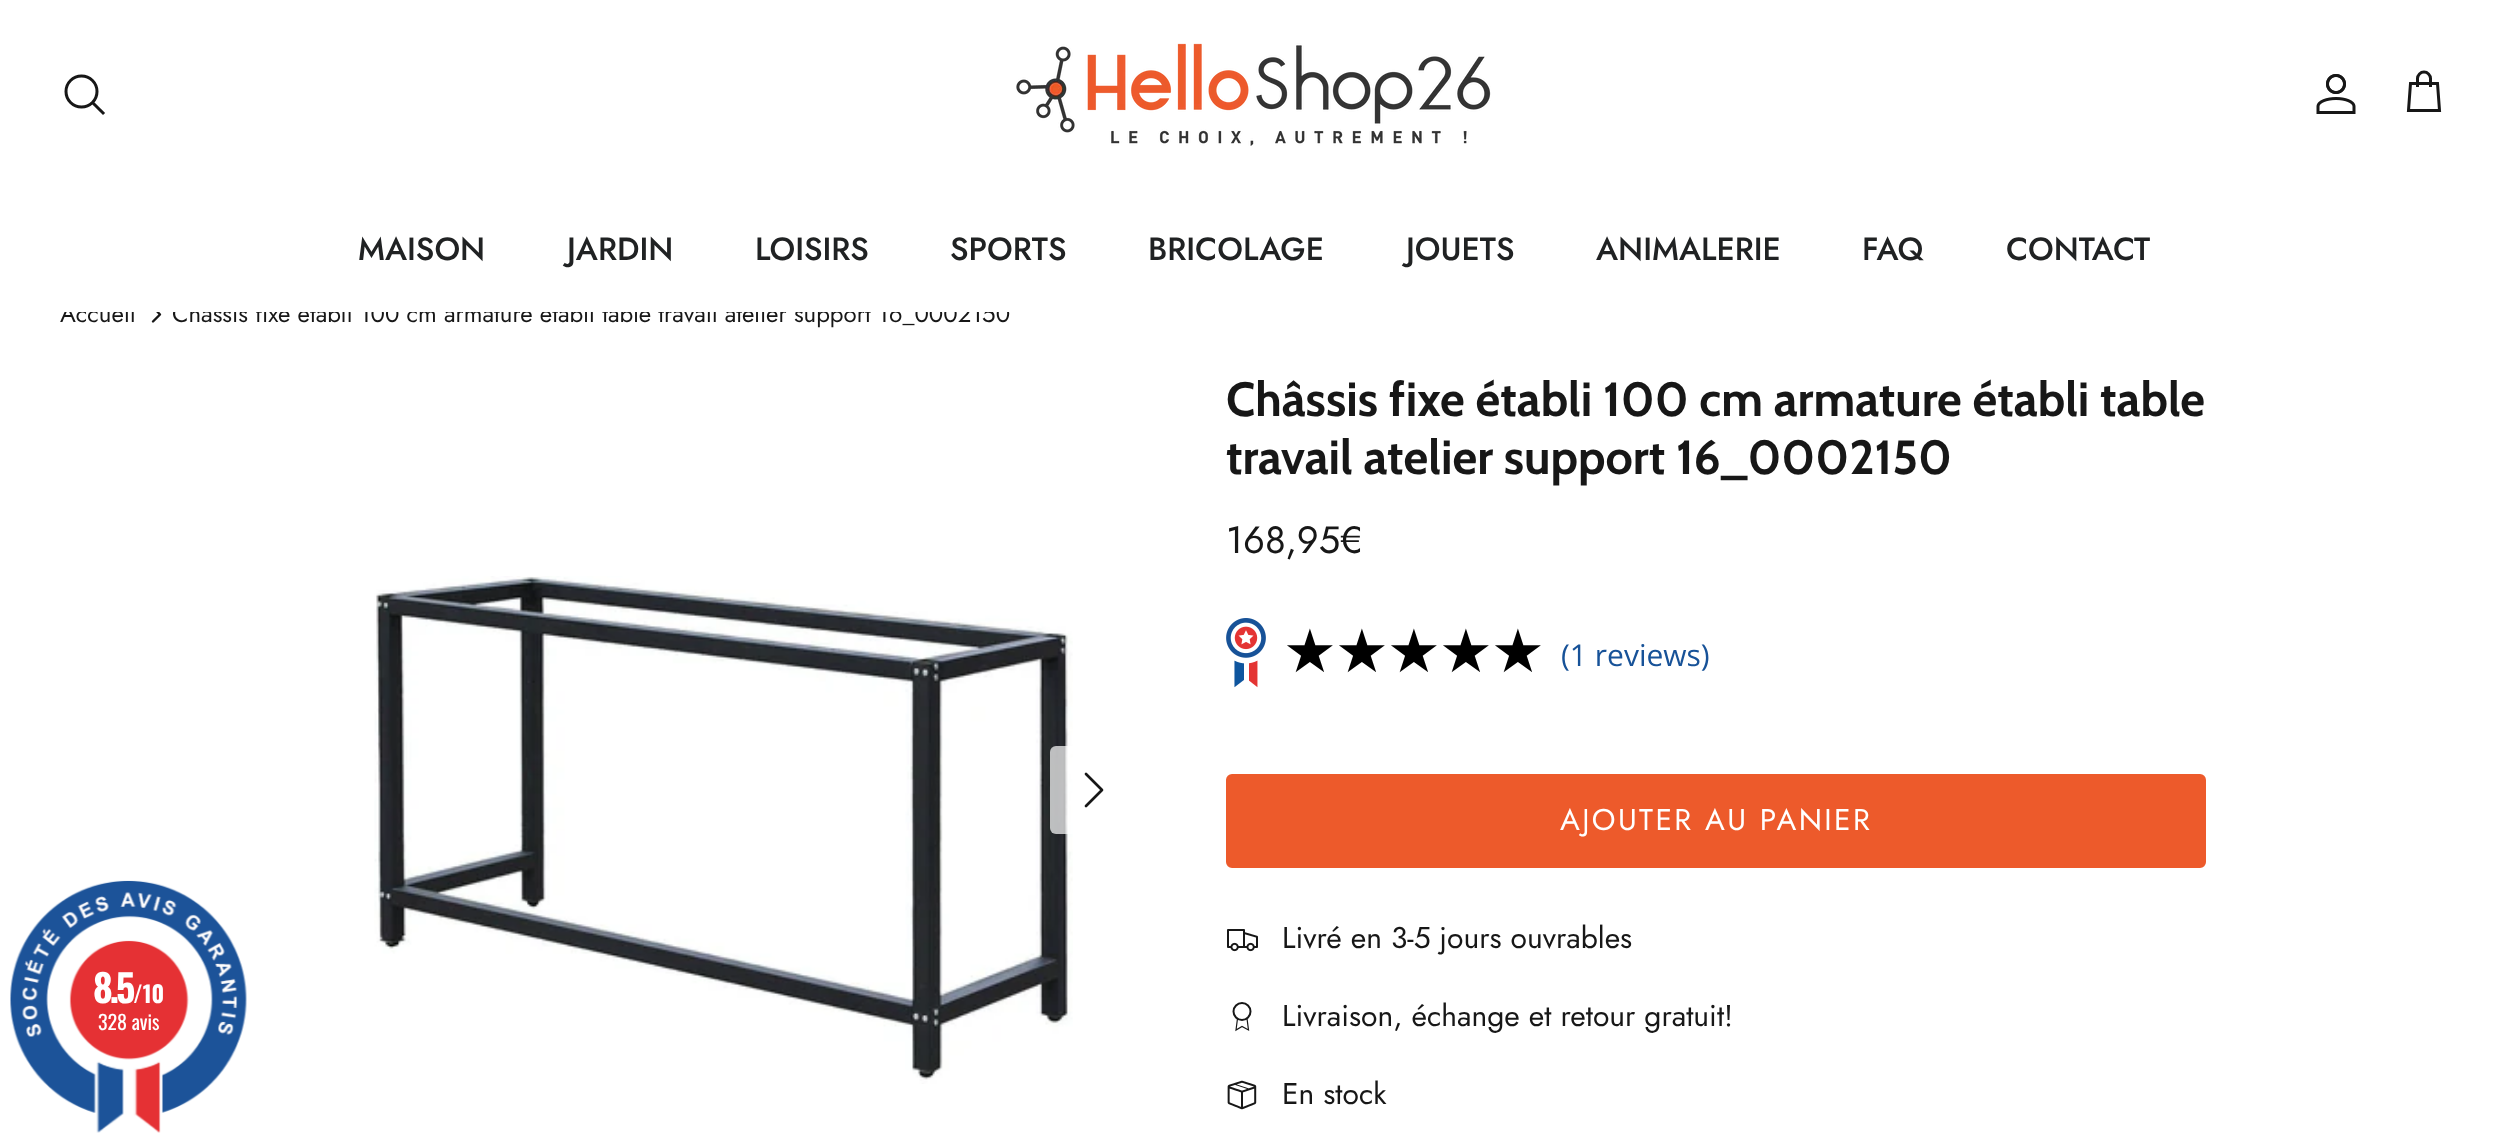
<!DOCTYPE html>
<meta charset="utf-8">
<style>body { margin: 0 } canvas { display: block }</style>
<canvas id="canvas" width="2508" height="1143"></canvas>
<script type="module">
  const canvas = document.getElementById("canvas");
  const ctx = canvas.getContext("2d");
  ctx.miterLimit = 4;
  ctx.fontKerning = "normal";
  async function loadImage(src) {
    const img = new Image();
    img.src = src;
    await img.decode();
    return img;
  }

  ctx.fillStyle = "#ffffff";
  ctx.fillRect(0, 0, 2508, 1143);
  ctx.beginPath();
  ctx.arc(81.5, 91.5, 15.5, 0, Math.PI * 2);
  ctx.strokeStyle = "#171717";
  ctx.lineWidth = 3;
  ctx.stroke();
  ctx.beginPath();
  ctx.moveTo(94, 104);
  ctx.lineTo(103, 113);
  ctx.lineCap = "square";
  ctx.stroke();
  ctx.drawImage(await loadImage("img1.png"), 1016, 43, 475, 103);
  ctx.drawImage(await loadImage("img2.png"), 2316, 74, 40, 40);
  ctx.beginPath();
  ctx.moveTo(2430.5, 87);
  ctx.lineTo(2430.5, 78.5);
  ctx.bezierCurveTo(2430.5, 75, 2427.5, 72, 2424, 72);
  ctx.bezierCurveTo(2420.5, 72, 2417.5, 75, 2417.5, 78.5);
  ctx.lineTo(2417.5, 87);
  ctx.moveTo(2410.5, 83.5);
  ctx.lineTo(2437.5, 83.5);
  ctx.lineTo(2439.5, 110.5);
  ctx.lineTo(2408.5, 110.5);
  ctx.closePath();
  ctx.lineCap = "butt";
  ctx.stroke();
  ctx.font = "24px Jost";
  ctx.fillStyle = "#171717";
  ctx.fillText("Accueil", 60, 322);
  ctx.beginPath();
  ctx.moveTo(153, 321.5);
  ctx.lineTo(160, 314.5);
  ctx.lineTo(153, 307);
  ctx.lineWidth = 2.4;
  ctx.lineCap = "round";
  ctx.lineJoin = "round";
  ctx.stroke();
  ctx.fillText("Châssis fixe établi 100 cm armature établi table travail atelier support 16_0002150", 172, 322);
  ctx.fillStyle = "#ffffff";
  ctx.fillRect(64, 310, 945, 2);
  ctx.fillRect(65, 303, 944, 7);
  ctx.font = "500 32px Jost";
  ctx.fillStyle = "#202223";
  ctx.fillText("MAISON", 358, 260);
  ctx.fillText("JARDIN", 567, 260);
  ctx.fillText("LOISIRS", 755, 260);
  ctx.fillText("SPORTS", 950, 260);
  ctx.fillText("BRICOLAGE", 1148, 260);
  ctx.fillText("JOUETS", 1406, 260);
  ctx.fillText("ANIMALERIE", 1596, 260);
  ctx.fillText("FAQ", 1862, 260);
  ctx.fillText("CONTACT", 2006, 260);
  ctx.drawImage(await loadImage("img3.png"), 374, 576, 699, 508);
  ctx.fillStyle = "rgba(255, 255, 255, 0.7)";
  ctx.beginPath();
  ctx.roundRect(1050, 746, 88, 88, [6, 0, 0, 6]);
  ctx.fill();
  ctx.beginPath();
  ctx.moveTo(1086, 806);
  ctx.lineTo(1102, 790);
  ctx.lineTo(1086, 774);
  ctx.lineWidth = 2.7;
  ctx.stroke();
  ctx.font = "bold 48px Cabin";
  ctx.fillStyle = "#171717";
  ctx.fillText("Châssis fixe établi 100 cm armature établi table", 1226, 416);
  ctx.fillText("travail atelier support 16_0002150", 1226, 474);
  ctx.font = "38px Jost";
  ctx.fillText("168,95€", 1226, 553);
  ctx.drawImage(await loadImage("img4.png"), 1226, 618, 40, 70);
  ctx.font = "60px DejaVu Sans";
  ctx.fillStyle = "#000000";
  ctx.fillText("★", 1283, 672);
  ctx.fillText("★", 1335, 672);
  ctx.fillText("★", 1387, 672);
  ctx.fillText("★", 1439, 672);
  ctx.fillText("★", 1491, 672);
  ctx.font = "30px Open Sans";
  ctx.fillStyle = "#175298";
  ctx.fillText("(1 reviews)", 1561, 666);
  ctx.fillStyle = "#ed5a2b";
  ctx.beginPath();
  ctx.roundRect(1227, 775, 978, 92, 5);
  ctx.fill();
  ctx.strokeStyle = "#ed5a2b";
  ctx.lineWidth = 2;
  ctx.lineJoin = "miter";
  ctx.stroke();
  ctx.letterSpacing = "2.4px";
  ctx.font = "30px Jost";
  ctx.fillStyle = "#ffffff";
  ctx.fillText("AJOUTER AU PANIER", 1560, 830);
  ctx.drawImage(await loadImage("img5.png"), 1227, 929, 31, 23);
  ctx.letterSpacing = "0px";
  ctx.fillStyle = "#171717";
  ctx.fillText("Livré en 3-5 jours ouvrables", 1282, 948);
  ctx.beginPath();
  ctx.arc(1242, 1011.5, 8.5, 0, Math.PI * 2);
  ctx.strokeStyle = "#171717";
  ctx.stroke();
  ctx.beginPath();
  ctx.moveTo(1237.5, 1018.5);
  ctx.lineTo(1236, 1030);
  ctx.lineTo(1242, 1026.5);
  ctx.lineTo(1248.5, 1030);
  ctx.lineTo(1247, 1018.5);
  ctx.lineWidth = 1.2;
  ctx.lineCap = "butt";
  ctx.stroke();
  ctx.fillText("Livraison, échange et retour gratuit!", 1282, 1026);
  ctx.drawImage(await loadImage("img6.png"), 1227, 1080, 30, 30);
  ctx.fillText("En stock", 1282, 1104);
  ctx.drawImage(await loadImage("img7.png"), 10, 880, 237, 253);
  ctx.letterSpacing = "-3px";
  ctx.font = "bold 38px Oswald";
  ctx.fillStyle = "#ffffff";
  ctx.fillText("8.5", 93, 1003);
  ctx.letterSpacing = "0px";
  ctx.font = "bold 23px Oswald";
  ctx.fillText("/10", 133, 1003);
  ctx.font = "20px Oswald";
  ctx.fillText("328 avis", 98, 1030);
</script>
